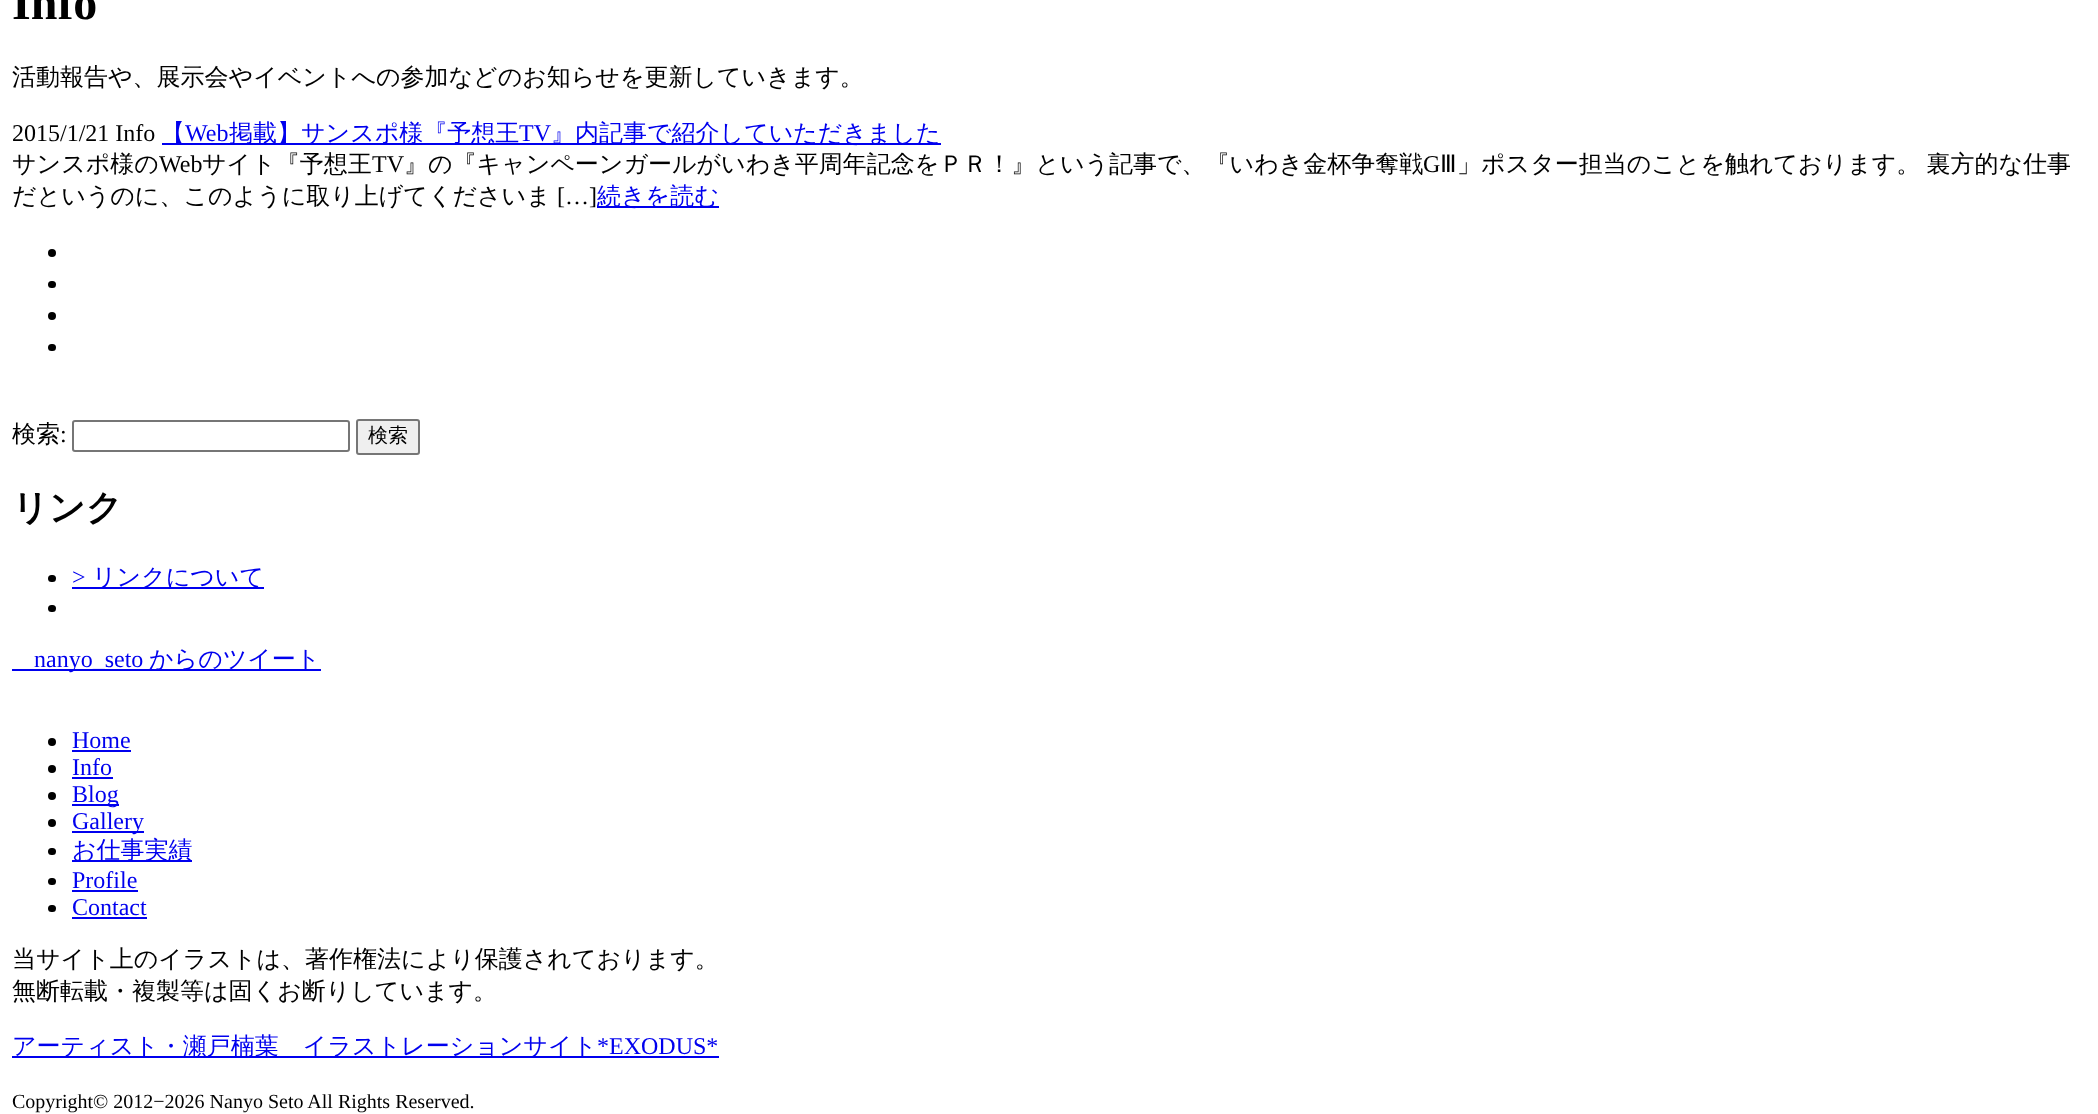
<!DOCTYPE html>
<meta charset="utf-8">
<style>body { margin: 0 } canvas { display: block }</style>
<canvas id="canvas" width="2098" height="1114"></canvas>
<script type="module">
  const canvas = document.getElementById("canvas");
  const ctx = canvas.getContext("2d");
  ctx.miterLimit = 4;
  ctx.fontKerning = "normal";

  ctx.fillStyle = "#ffffff";
  ctx.fillRect(0, 0, 2098, 1114);
  ctx.font = "bold 48px Liberation Serif";
  ctx.fillStyle = "#000000";
  ctx.fillText("Info", 12, 19);
  ctx.font = "500 24px WenQuanYi Zen Hei";
  ctx.fillText("活動報告や、展示会やイベントへの参加などのお知らせを更新していきます。", 12, 85);
  ctx.font = "24px Liberation Serif";
  ctx.fillText("2015/1/21 Info", 12, 141);
  ctx.fillStyle = "#0000ee";
  ctx.fillRect(162, 143, 779, 2);
  ctx.font = "500 24px WenQuanYi Zen Hei";
  ctx.fillText("【", 161, 141);
  ctx.font = "24px Liberation Serif";
  ctx.fillText("Web", 185, 141);
  ctx.font = "500 24px WenQuanYi Zen Hei";
  ctx.fillText("掲載】サンスポ様『予想王", 229, 141);
  ctx.font = "24px Liberation Serif";
  ctx.fillText("TV", 519, 141);
  ctx.font = "500 24px WenQuanYi Zen Hei";
  ctx.fillText("』内記事で紹介していただきました", 551, 141);
  ctx.fillStyle = "#000000";
  ctx.fillText("サンスポ様の", 12, 172);
  ctx.font = "24px Liberation Serif";
  ctx.fillText("Web", 159, 172);
  ctx.font = "500 24px WenQuanYi Zen Hei";
  ctx.fillText("サイト『予想王", 202, 172);
  ctx.font = "24px Liberation Serif";
  ctx.fillText("TV", 372, 172);
  ctx.font = "500 24px WenQuanYi Zen Hei";
  ctx.fillText("』の『キャンペーンガールがいわき平周年記念をＰＲ！』という記事で、『いわき金杯争奪戦", 404, 172);
  ctx.font = "24px Liberation Serif";
  ctx.fillText("G", 1423, 172);
  ctx.font = "24px DejaVu Sans";
  ctx.fillText("Ⅲ", 1440, 172);
  ctx.wordSpacing = "-1px";
  ctx.font = "500 24px WenQuanYi Zen Hei";
  ctx.fillText("」ポスター担当のことを触れております。 裏方的な仕事", 1457, 172);
  ctx.wordSpacing = "0px";
  ctx.fillText("だというのに、このように取り上げてくださいま", 12, 204);
  ctx.font = "24px Liberation Serif";
  ctx.fillText("[…]", 557, 204);
  ctx.fillStyle = "#0000ee";
  ctx.fillRect(597, 206, 122, 2);
  ctx.font = "500 24px WenQuanYi Zen Hei";
  ctx.fillText("続きを読む", 597, 204);
  ctx.fillStyle = "#000000";
  ctx.beginPath();
  ctx.arc(52, 253, 4, 0, Math.PI * 2);
  ctx.fill();
  ctx.beginPath();
  ctx.roundRect(48, 281, 8, 7, 3.5);
  ctx.fill();
  ctx.beginPath();
  ctx.arc(52, 316, 4, 0, Math.PI * 2);
  ctx.fill();
  ctx.beginPath();
  ctx.roundRect(48, 344, 8, 7, 3.5);
  ctx.fill();
  ctx.fillText("検索", 12, 442);
  ctx.font = "24px Liberation Serif";
  ctx.fillText(":", 60, 442);
  ctx.beginPath();
  ctx.roundRect(73, 421, 276, 30, 2);
  ctx.strokeStyle = "#767676";
  ctx.lineWidth = 2;
  ctx.stroke();
  ctx.fillStyle = "#efefef";
  ctx.beginPath();
  ctx.roundRect(357, 420, 62, 34, 2);
  ctx.fill();
  ctx.stroke();
  ctx.font = "500 20px WenQuanYi Zen Hei";
  ctx.fillStyle = "#000000";
  ctx.fillText("検索", 368, 442);
  ctx.font = "bold 36px WenQuanYi Zen Hei";
  ctx.fillText("リンク", 12, 520);
  ctx.beginPath();
  ctx.roundRect(48, 575, 8, 7, 3.5);
  ctx.fill();
  ctx.font = "24px Liberation Serif";
  ctx.fillStyle = "#0000ee";
  ctx.fillText(">", 72, 585);
  ctx.fillRect(72, 587, 192, 2);
  ctx.font = "500 24px WenQuanYi Zen Hei";
  ctx.fillText("リンクについて", 92, 585);
  ctx.fillStyle = "#000000";
  ctx.beginPath();
  ctx.roundRect(48, 605, 8, 7, 3.5);
  ctx.fill();
  ctx.fillStyle = "#0000ee";
  ctx.fillRect(12, 669, 309, 2);
  ctx.font = "24px Liberation Serif";
  ctx.fillText("nanyo_seto", 34, 667);
  ctx.font = "500 24px WenQuanYi Zen Hei";
  ctx.fillText("からのツイート", 149, 667);
  ctx.fillStyle = "#000000";
  ctx.beginPath();
  ctx.arc(52, 742, 4, 0, Math.PI * 2);
  ctx.fill();
  ctx.font = "24px Liberation Serif";
  ctx.fillStyle = "#0000ee";
  ctx.fillText("Home", 72, 748);
  ctx.fillRect(72, 750, 59, 2);
  ctx.fillStyle = "#000000";
  ctx.beginPath();
  ctx.arc(52, 769, 4, 0, Math.PI * 2);
  ctx.fill();
  ctx.fillStyle = "#0000ee";
  ctx.fillText("Info", 72, 775);
  ctx.fillRect(72, 777, 41, 2);
  ctx.fillStyle = "#000000";
  ctx.beginPath();
  ctx.arc(52, 796, 4, 0, Math.PI * 2);
  ctx.fill();
  ctx.fillStyle = "#0000ee";
  ctx.fillRect(72, 804, 47, 2);
  ctx.fillText("Blog", 72, 802);
  ctx.fillStyle = "#000000";
  ctx.beginPath();
  ctx.arc(52, 823, 4, 0, Math.PI * 2);
  ctx.fill();
  ctx.fillStyle = "#0000ee";
  ctx.fillRect(72, 831, 72, 2);
  ctx.fillText("Gallery", 72, 829);
  ctx.fillStyle = "#000000";
  ctx.beginPath();
  ctx.roundRect(48, 848, 8, 7, 3.5);
  ctx.fill();
  ctx.fillStyle = "#0000ee";
  ctx.fillRect(72, 860, 120, 2);
  ctx.font = "500 24px WenQuanYi Zen Hei";
  ctx.fillText("お仕事実績", 72, 858);
  ctx.fillStyle = "#000000";
  ctx.beginPath();
  ctx.roundRect(48, 878, 8, 7, 3.5);
  ctx.fill();
  ctx.font = "24px Liberation Serif";
  ctx.fillStyle = "#0000ee";
  ctx.fillText("Profile", 72, 888);
  ctx.fillRect(72, 890, 66, 2);
  ctx.fillStyle = "#000000";
  ctx.beginPath();
  ctx.roundRect(48, 905, 8, 7, 3.5);
  ctx.fill();
  ctx.fillStyle = "#0000ee";
  ctx.fillText("Contact", 72, 915);
  ctx.fillRect(72, 917, 75, 2);
  ctx.font = "500 24px WenQuanYi Zen Hei";
  ctx.fillStyle = "#000000";
  ctx.fillText("当サイト上のイラストは、著作権法により保護されております。", 12, 967);
  ctx.fillText("無断転載・複製等は固くお断りしています。", 12, 999);
  ctx.fillStyle = "#0000ee";
  ctx.fillRect(12, 1056, 707, 2);
  ctx.fillText("アーティスト・瀬戸楠葉　イラストレーションサイト", 12, 1054);
  ctx.font = "24px Liberation Serif";
  ctx.fillText("*EXODUS*", 597, 1054);
  ctx.font = "20px Liberation Serif";
  ctx.fillStyle = "#000000";
  ctx.fillText("Copyright© 2012−2026 Nanyo Seto All Rights Reserved.", 12, 1108);
</script>
